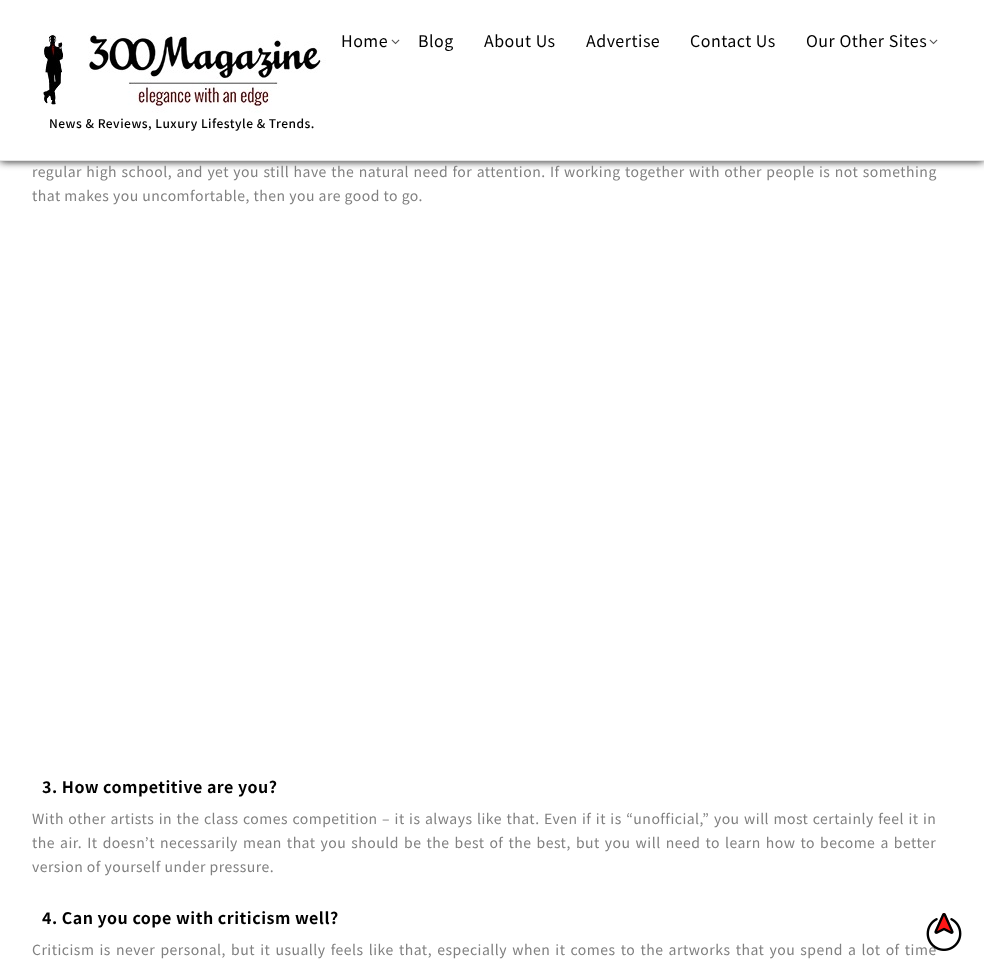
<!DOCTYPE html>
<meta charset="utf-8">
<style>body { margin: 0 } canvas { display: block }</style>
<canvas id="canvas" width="984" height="975"></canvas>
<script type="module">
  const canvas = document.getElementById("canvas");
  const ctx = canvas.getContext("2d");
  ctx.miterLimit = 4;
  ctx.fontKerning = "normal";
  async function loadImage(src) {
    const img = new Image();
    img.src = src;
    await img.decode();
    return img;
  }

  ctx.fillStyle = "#ffffff";
  ctx.fillRect(0, 0, 984, 975);
  ctx.fillStyle = "rgba(0, 0, 0, 0.9)";
  ctx.filter = "blur(4px)";
  ctx.beginPath();
  ctx.rect(0, 0, 984, 161);
  ctx.fill();
  ctx.filter = "none";
  ctx.fillStyle = "#909090";
  ctx.filter = "blur(2.5px)";
  ctx.beginPath();
  ctx.rect(5, 10, 974, 151);
  ctx.fill();
  ctx.filter = "none";
  ctx.fillStyle = "#ffffff";
  ctx.fillRect(0, 0, 984, 160);
  ctx.fillStyle = "#e4e4e4";
  ctx.fillRect(0, 160, 984, 1);
  ctx.letterSpacing = "0.5px";
  ctx.font = "100 16px Noto Sans JP";
  ctx.fillStyle = "#000000";
  ctx.fillText("Home", 341, 47);
  ctx.drawImage(await loadImage("img1.png"), 391, 39, 9, 6);
  ctx.fillText("Blog", 418, 47);
  ctx.fillText("About Us", 484, 47);
  ctx.fillText("Advertise", 586, 47);
  ctx.fillText("Contact Us", 690, 47);
  ctx.fillText("Our Other Sites", 806, 47);
  ctx.drawImage(await loadImage("img1.png"), 929, 39, 9, 6);
  ctx.drawImage(await loadImage("img2.png"), 42, 33, 284, 80);
  ctx.font = "500 12px Noto Sans JP";
  ctx.fillText("News & Reviews, Luxury Lifestyle & Trends.", 49, 128);
  ctx.wordSpacing = "0.75px";
  ctx.font = "100 14px Noto Sans JP";
  ctx.fillStyle = "#808080";
  ctx.fillText("regular high school, and yet you still have the natural need for attention. If working together with other people is not something", 32, 177);
  ctx.wordSpacing = "0px";
  ctx.fillText("that makes you uncomfortable, then you are good to go.", 32, 201);
  ctx.font = "bold 16px Noto Sans JP";
  ctx.fillStyle = "#000000";
  ctx.fillText("3. How competitive are you?", 42, 793);
  ctx.wordSpacing = "0.8px";
  ctx.font = "100 14px Noto Sans JP";
  ctx.fillStyle = "#808080";
  ctx.fillText("With other artists in the class comes competition – it is always like that. Even if it is “unofficial,” you will most certainly feel it in", 32, 824);
  ctx.wordSpacing = "1.4px";
  ctx.fillText("the air. It doesn’t necessarily mean that you should be the best of the best, but you will need to learn how to become a better", 32, 848);
  ctx.wordSpacing = "0px";
  ctx.fillText("version of yourself under pressure.", 32, 872);
  ctx.font = "bold 16px Noto Sans JP";
  ctx.fillStyle = "#000000";
  ctx.fillText("4. Can you cope with criticism well?", 42, 924);
  ctx.wordSpacing = "1.5px";
  ctx.font = "100 14px Noto Sans JP";
  ctx.fillStyle = "#808080";
  ctx.fillText("Criticism is never personal, but it usually feels like that, especially when it comes to the artworks that you spend a lot of time", 32, 955);
  ctx.drawImage(await loadImage("img3.png"), 926, 913, 36, 38);
</script>
